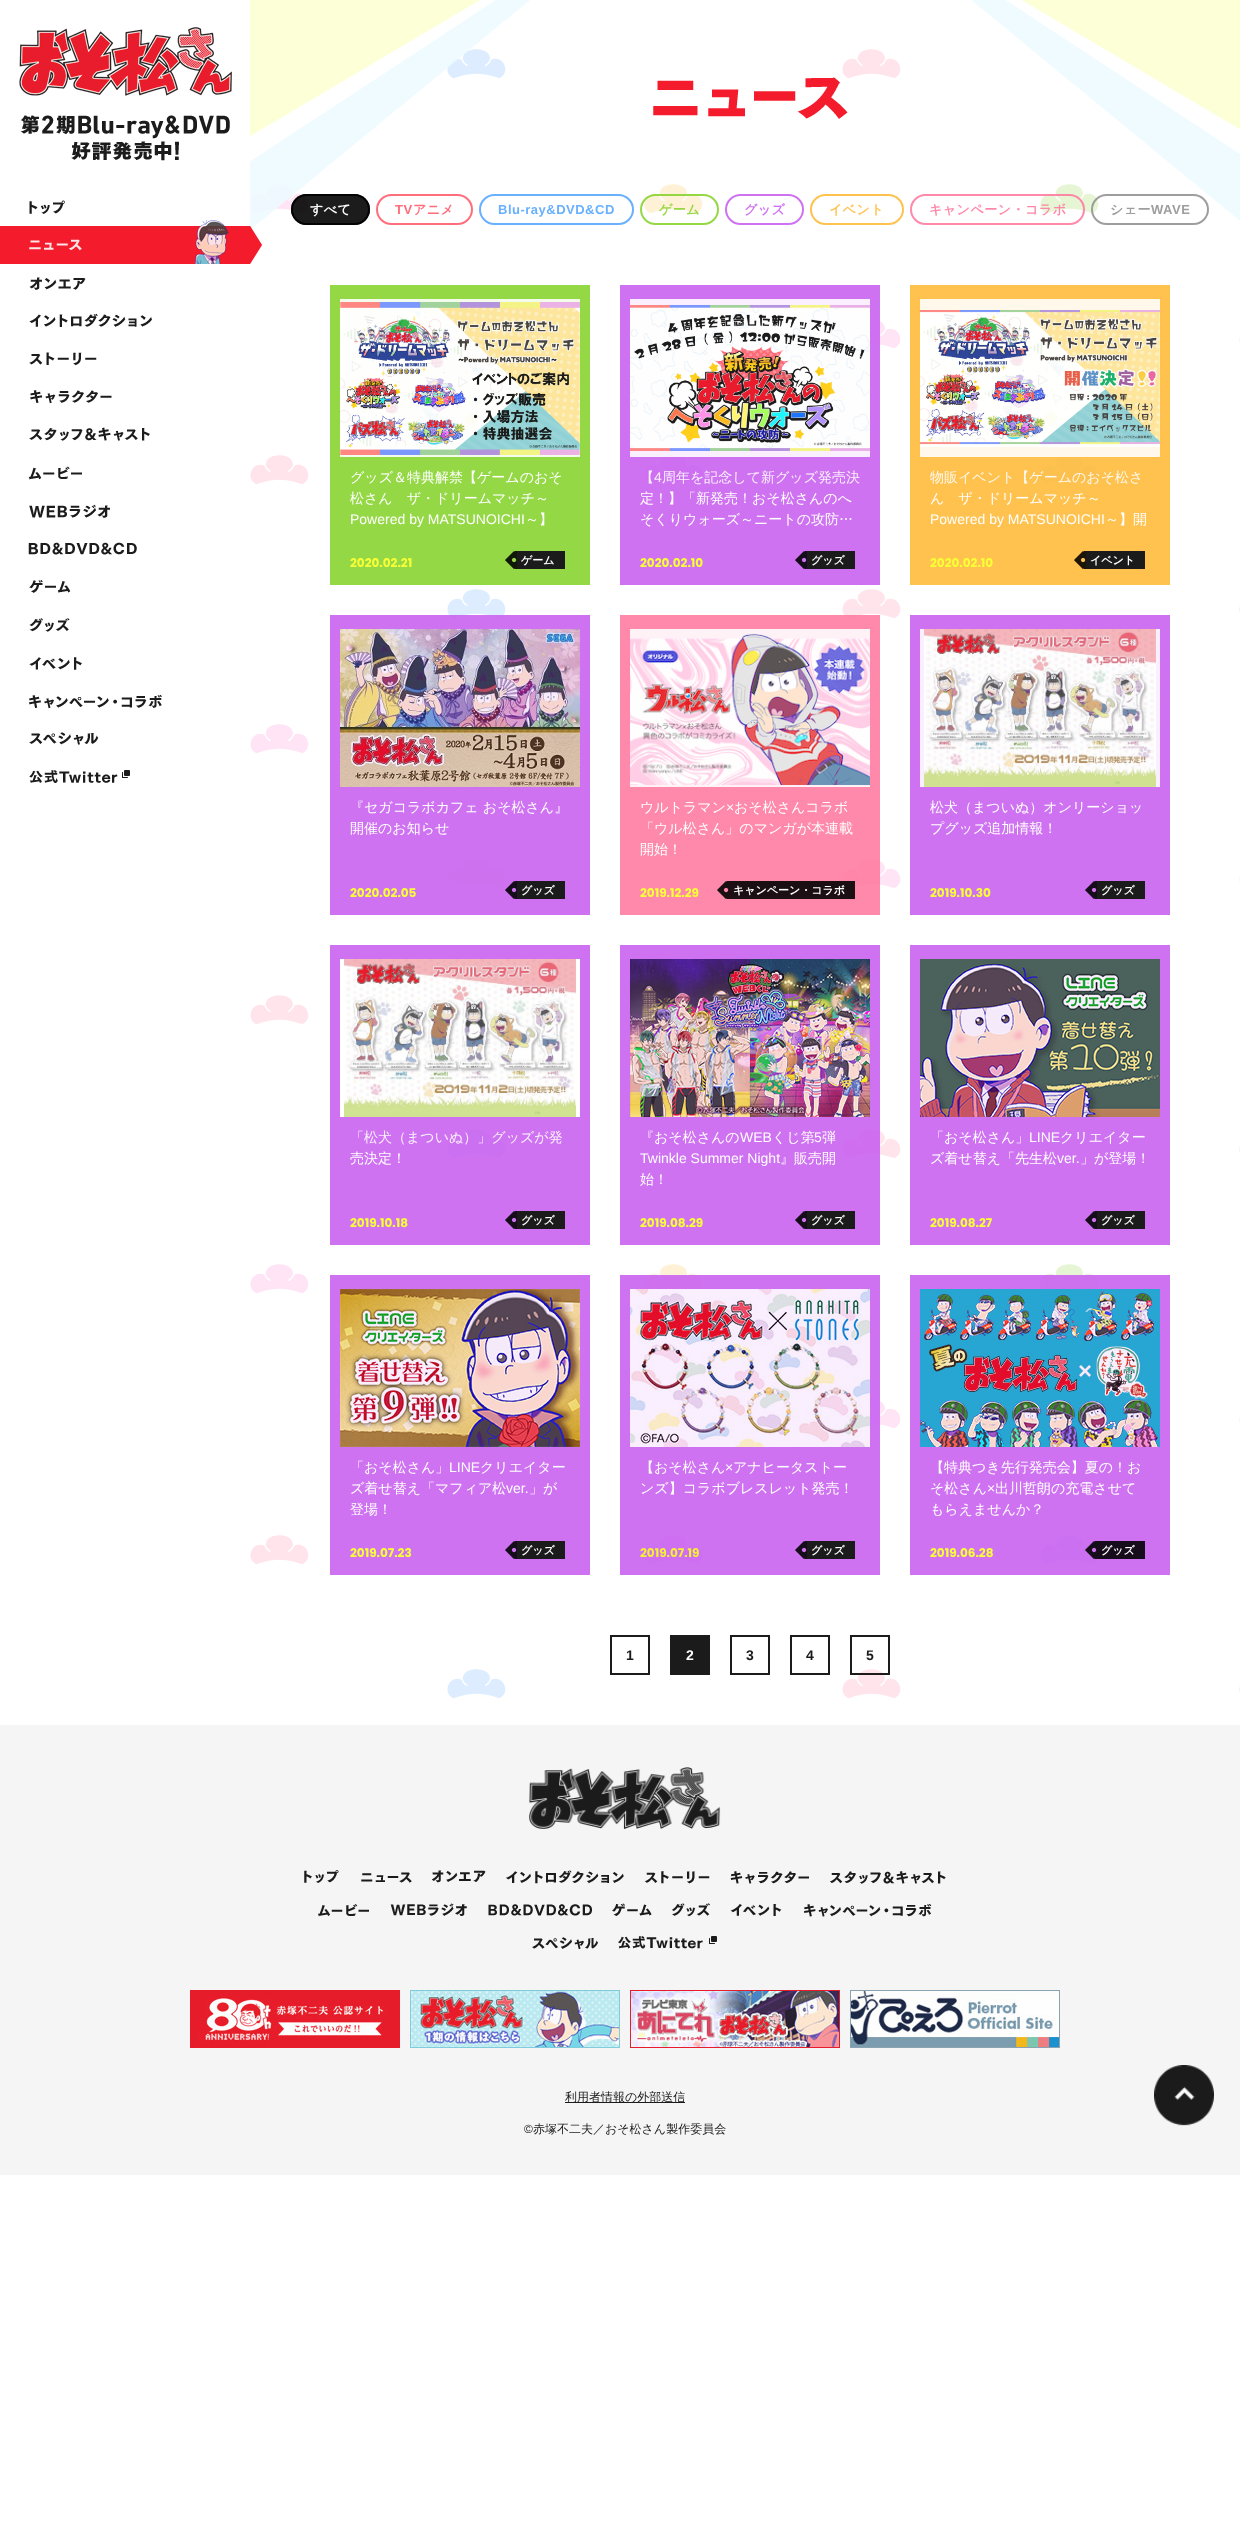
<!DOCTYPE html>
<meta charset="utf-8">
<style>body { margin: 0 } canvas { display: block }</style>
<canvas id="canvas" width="1240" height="2542"></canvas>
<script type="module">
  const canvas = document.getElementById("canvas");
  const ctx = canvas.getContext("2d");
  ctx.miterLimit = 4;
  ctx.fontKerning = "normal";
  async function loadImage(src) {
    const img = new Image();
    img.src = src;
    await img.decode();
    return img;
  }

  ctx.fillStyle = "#ffffff";
  ctx.fillRect(0, 0, 1240, 2542);
  ctx.drawImage(await loadImage("img1.png"), 19, 27, 213, 69);
  ctx.drawImage(await loadImage("img2.png"), 20, 115, 210, 46);
  ctx.drawImage(await loadImage("img3.png"), 29, 200, 36, 14);
  ctx.fillStyle = "#f41b2c";
  ctx.fillRect(0, 226, 250, 38);
  ctx.drawImage(await loadImage("img4.png"), 29, 239, 53, 12);
  ctx.drawImage(await loadImage("img5.png"), 195, 220, 34, 44);
  ctx.drawImage(await loadImage("img21.png"), 250, 49, 990, 1650);
  ctx.drawImage(await loadImage("img22.png"), 250, 0, 280, 230);
  ctx.drawImage(await loadImage("img6.png"), 250, 226, 12, 38);
  ctx.drawImage(await loadImage("img7.png"), 29, 277, 57, 13);
  ctx.drawImage(await loadImage("img8.png"), 29, 313, 123, 14);
  ctx.drawImage(await loadImage("img9.png"), 29, 352, 68, 14);
  ctx.drawImage(await loadImage("img10.png"), 30, 390, 82, 14);
  ctx.drawImage(await loadImage("img11.png"), 29, 427, 121, 14);
  ctx.drawImage(await loadImage("img12.png"), 28, 466, 54, 14);
  ctx.drawImage(await loadImage("img13.png"), 29, 504, 81, 14);
  ctx.drawImage(await loadImage("img14.png"), 28, 542, 109, 13);
  ctx.drawImage(await loadImage("img15.png"), 29, 580, 42, 13);
  ctx.drawImage(await loadImage("img16.png"), 29, 618, 41, 14);
  ctx.drawImage(await loadImage("img17.png"), 29, 657, 53, 13);
  ctx.drawImage(await loadImage("img18.png"), 29, 694, 133, 15);
  ctx.drawImage(await loadImage("img19.png"), 29, 732, 70, 13);
  ctx.drawImage(await loadImage("img20.png"), 29, 770, 101, 13);
  ctx.drawImage(await loadImage("img23.png"), 972, 0, 268, 221);
  ctx.drawImage(await loadImage("img24.png"), 653, 77, 195, 42);
  ctx.fillStyle = "rgba(0, 0, 0, 0.89)";
  ctx.beginPath();
  ctx.roundRect(291, 194, 79, 31, 15.5);
  ctx.fill();
  ctx.beginPath();
  ctx.roundRect(292, 195, 77, 29, 14.5);
  ctx.strokeStyle = "rgba(0, 0, 0, 0.89)";
  ctx.lineWidth = 2;
  ctx.stroke();
  ctx.letterSpacing = "0.5px";
  ctx.font = "bold 13px WenQuanYi Zen Hei";
  ctx.fillStyle = "#ffffff";
  ctx.fillText("すべて", 310, 214);
  ctx.beginPath();
  ctx.roundRect(377, 195, 95, 29, 14.5);
  ctx.strokeStyle = "#ff6e7a";
  ctx.stroke();
  ctx.font = "bold 13px Liberation Sans";
  ctx.fillStyle = "#ff6e7a";
  ctx.fillText("TV", 395, 214);
  ctx.font = "bold 13px WenQuanYi Zen Hei";
  ctx.fillText("アニメ", 413, 214);
  ctx.beginPath();
  ctx.roundRect(480, 195, 153, 29, 14.5);
  ctx.strokeStyle = "#69b0ff";
  ctx.stroke();
  ctx.font = "bold 13px Liberation Sans";
  ctx.fillStyle = "#69b0ff";
  ctx.fillText("Blu-ray&DVD&CD", 498, 214);
  ctx.beginPath();
  ctx.roundRect(641, 195, 77, 29, 14.5);
  ctx.strokeStyle = "rgba(136, 211, 47, 0.89)";
  ctx.stroke();
  ctx.font = "bold 13px WenQuanYi Zen Hei";
  ctx.fillStyle = "#95d743";
  ctx.fillText("ゲーム", 659, 214);
  ctx.beginPath();
  ctx.roundRect(726, 195, 77, 29, 14.5);
  ctx.strokeStyle = "#cf72f2";
  ctx.stroke();
  ctx.fillStyle = "#cf72f2";
  ctx.fillText("グッズ", 744, 214);
  ctx.beginPath();
  ctx.roundRect(811, 195, 92, 29, 14.5);
  ctx.strokeStyle = "#ffc24e";
  ctx.stroke();
  ctx.fillStyle = "#ffc24e";
  ctx.fillText("イベント", 829, 214);
  ctx.beginPath();
  ctx.roundRect(911, 195, 173, 29, 14.5);
  ctx.strokeStyle = "rgba(255, 122, 160, 0.89)";
  ctx.stroke();
  ctx.fillStyle = "#ff88a9";
  ctx.fillText("キャンペーン・コラボ", 929, 214);
  ctx.beginPath();
  ctx.roundRect(1092, 195, 116, 29, 14.5);
  ctx.strokeStyle = "rgba(146, 146, 146, 0.89)";
  ctx.stroke();
  ctx.fillStyle = "#9e9e9e";
  ctx.fillText("シェー", 1110, 214);
  ctx.font = "bold 13px Liberation Sans";
  ctx.fillText("WAVE", 1151, 214);
  ctx.fillStyle = "rgba(136, 211, 47, 0.89)";
  ctx.fillRect(330, 285, 260, 300);
  ctx.fillStyle = "rgba(255, 255, 255, 0.89)";
  ctx.fillRect(340, 299, 240, 158);
  ctx.drawImage(await loadImage("img25.png"), 340, 302, 240, 153);
  ctx.letterSpacing = "0px";
  ctx.font = "500 14px WenQuanYi Zen Hei";
  ctx.fillStyle = "#ffffff";
  ctx.fillText("グッズ＆特典解禁【ゲームのおそ", 350, 482);
  ctx.fillText("松さん　ザ・ドリームマッチ～", 350, 503);
  ctx.font = "14px Liberation Sans";
  ctx.fillText("Powered by MATSUNOICHI", 350, 524);
  ctx.font = "500 14px WenQuanYi Zen Hei";
  ctx.fillText("～】", 525, 524);
  ctx.font = "bold 12px Poppins";
  ctx.fillStyle = "#f8ff36";
  ctx.fillText("2020.02.21", 350, 567);
  ctx.fillStyle = "#1b1b1b";
  ctx.fillRect(517, 551, 48, 18);
  ctx.drawImage(await loadImage("img26.png"), 505, 551, 12, 18);
  ctx.font = "bold 11px WenQuanYi Zen Hei";
  ctx.fillStyle = "#ffffff";
  ctx.fillText("ゲーム", 521, 564);
  ctx.fillStyle = "rgba(201, 97, 240, 0.89)";
  ctx.fillRect(620, 285, 260, 300);
  ctx.fillStyle = "rgba(255, 255, 255, 0.89)";
  ctx.fillRect(630, 299, 240, 158);
  ctx.drawImage(await loadImage("img27.png"), 630, 305, 240, 146);
  ctx.font = "500 14px WenQuanYi Zen Hei";
  ctx.fillStyle = "#faf0fe";
  ctx.fillText("【", 640, 482);
  ctx.font = "14px Liberation Sans";
  ctx.fillText("4", 654, 482);
  ctx.font = "500 14px WenQuanYi Zen Hei";
  ctx.fillText("周年を記念して新グッズ発売決", 662, 482);
  ctx.fillStyle = "#ffffff";
  ctx.fillText("定！】「新発売！おそ松さんのへ", 640, 503);
  ctx.fillText("そくりウォーズ～ニートの攻防…", 640, 524);
  ctx.font = "bold 12px Poppins";
  ctx.fillStyle = "#f8ff36";
  ctx.fillText("2020.02.10", 640, 567);
  ctx.fillStyle = "#1b1b1b";
  ctx.fillRect(807, 551, 48, 18);
  ctx.drawImage(await loadImage("img28.png"), 795, 551, 12, 18);
  ctx.font = "bold 11px WenQuanYi Zen Hei";
  ctx.fillStyle = "#ffffff";
  ctx.fillText("グッズ", 811, 564);
  ctx.fillStyle = "rgba(255, 187, 57, 0.89)";
  ctx.fillRect(910, 285, 260, 300);
  ctx.fillStyle = "rgba(255, 255, 255, 0.89)";
  ctx.fillRect(920, 299, 240, 158);
  ctx.drawImage(await loadImage("img29.png"), 920, 310, 240, 137);
  ctx.font = "500 14px WenQuanYi Zen Hei";
  ctx.fillStyle = "#fff8ec";
  ctx.fillText("物販イベント【ゲームのおそ松さ", 930, 482);
  ctx.fillStyle = "#ffffff";
  ctx.fillText("ん　ザ・ドリームマッチ～", 930, 503);
  ctx.font = "14px Liberation Sans";
  ctx.fillText("Powered by MATSUNOICHI", 930, 524);
  ctx.font = "500 14px WenQuanYi Zen Hei";
  ctx.fillText("～】開", 1105, 524);
  ctx.font = "bold 12px Poppins";
  ctx.fillStyle = "#f8ff36";
  ctx.fillText("2020.02.10", 930, 567);
  ctx.fillStyle = "#1b1b1b";
  ctx.fillRect(1086, 551, 59, 18);
  ctx.drawImage(await loadImage("img30.png"), 1074, 551, 12, 18);
  ctx.font = "bold 11px WenQuanYi Zen Hei";
  ctx.fillStyle = "#ffffff";
  ctx.fillText("イベント", 1090, 564);
  ctx.fillStyle = "rgba(201, 97, 240, 0.89)";
  ctx.fillRect(330, 615, 260, 300);
  ctx.drawImage(await loadImage("img31.png"), 340, 629, 240, 158);
  ctx.font = "500 14px WenQuanYi Zen Hei";
  ctx.fillStyle = "#ffffff";
  ctx.fillText("『セガコラボカフェ おそ松さん』", 350, 812);
  ctx.fillText("開催のお知らせ", 350, 833);
  ctx.font = "bold 12px Poppins";
  ctx.fillStyle = "#f8ff36";
  ctx.fillText("2020.02.05", 350, 897);
  ctx.fillStyle = "#1b1b1b";
  ctx.fillRect(517, 881, 48, 18);
  ctx.drawImage(await loadImage("img32.png"), 505, 881, 12, 18);
  ctx.font = "bold 11px WenQuanYi Zen Hei";
  ctx.fillStyle = "#ffffff";
  ctx.fillText("グッズ", 521, 894);
  ctx.fillStyle = "rgba(255, 122, 160, 0.89)";
  ctx.fillRect(620, 615, 260, 300);
  ctx.fillStyle = "rgba(255, 255, 255, 0.89)";
  ctx.fillRect(630, 629, 240, 158);
  ctx.drawImage(await loadImage("img33.png"), 630, 634, 240, 151);
  ctx.font = "500 14px WenQuanYi Zen Hei";
  ctx.fillStyle = "#ffffff";
  ctx.fillText("ウルトラマン", 640, 812);
  ctx.font = "14px Liberation Sans";
  ctx.fillText("×", 726, 812);
  ctx.font = "500 14px WenQuanYi Zen Hei";
  ctx.fillText("おそ松さんコラボ", 734, 812);
  ctx.fillText("「ウル松さん」のマンガが本連載", 640, 833);
  ctx.fillText("開始！", 640, 854);
  ctx.font = "bold 12px Poppins";
  ctx.fillStyle = "#f8ff36";
  ctx.fillText("2019.12.29", 640, 897);
  ctx.fillStyle = "rgba(0, 0, 0, 0.89)";
  ctx.fillRect(729, 881, 126, 18);
  ctx.drawImage(await loadImage("img34.png"), 717, 881, 12, 18);
  ctx.font = "bold 11px WenQuanYi Zen Hei";
  ctx.fillStyle = "#ffffff";
  ctx.fillText("キャンペーン・コラボ", 733, 894);
  ctx.fillStyle = "rgba(201, 97, 240, 0.89)";
  ctx.fillRect(910, 615, 260, 300);
  ctx.fillStyle = "rgba(255, 255, 255, 0.89)";
  ctx.fillRect(920, 629, 240, 158);
  ctx.drawImage(await loadImage("img35.png"), 924, 629, 232, 158);
  ctx.font = "500 14px WenQuanYi Zen Hei";
  ctx.fillStyle = "#ffffff";
  ctx.fillText("松犬（まついぬ）オンリーショッ", 930, 812);
  ctx.fillText("プグッズ追加情報！", 930, 833);
  ctx.font = "bold 12px Poppins";
  ctx.fillStyle = "#f8ff36";
  ctx.fillText("2019.10.30", 930, 897);
  ctx.fillStyle = "#1b1b1b";
  ctx.fillRect(1097, 881, 48, 18);
  ctx.drawImage(await loadImage("img28.png"), 1085, 881, 12, 18);
  ctx.font = "bold 11px WenQuanYi Zen Hei";
  ctx.fillStyle = "#ffffff";
  ctx.fillText("グッズ", 1101, 894);
  ctx.fillStyle = "rgba(201, 97, 240, 0.89)";
  ctx.fillRect(330, 945, 260, 300);
  ctx.fillStyle = "#ffffff";
  ctx.fillRect(340, 959, 240, 158);
  ctx.drawImage(await loadImage("img36.png"), 344, 959, 232, 158);
  ctx.font = "500 14px WenQuanYi Zen Hei";
  ctx.fillStyle = "#faf0fe";
  ctx.fillText("「松犬（まついぬ）」グッズが発", 350, 1142);
  ctx.fillStyle = "#ffffff";
  ctx.fillText("売決定！", 350, 1163);
  ctx.font = "bold 12px Poppins";
  ctx.fillStyle = "#f8ff36";
  ctx.fillText("2019.10.18", 350, 1227);
  ctx.fillStyle = "#1b1b1b";
  ctx.fillRect(517, 1211, 48, 18);
  ctx.drawImage(await loadImage("img28.png"), 505, 1211, 12, 18);
  ctx.font = "bold 11px WenQuanYi Zen Hei";
  ctx.fillStyle = "#ffffff";
  ctx.fillText("グッズ", 521, 1224);
  ctx.fillStyle = "rgba(201, 97, 240, 0.89)";
  ctx.fillRect(620, 945, 260, 300);
  ctx.drawImage(await loadImage("img37.png"), 630, 959, 240, 158);
  ctx.font = "500 14px WenQuanYi Zen Hei";
  ctx.fillStyle = "#ffffff";
  ctx.fillText("『おそ松さんの", 640, 1142);
  ctx.font = "14px Liberation Sans";
  ctx.fillText("WEB", 740, 1142);
  ctx.font = "500 14px WenQuanYi Zen Hei";
  ctx.fillText("くじ第", 772, 1142);
  ctx.font = "14px Liberation Sans";
  ctx.fillText("5", 814, 1142);
  ctx.font = "500 14px WenQuanYi Zen Hei";
  ctx.fillText("弾", 822, 1142);
  ctx.font = "14px Liberation Sans";
  ctx.fillText("Twinkle Summer Night", 640, 1163);
  ctx.font = "500 14px WenQuanYi Zen Hei";
  ctx.fillText("』販売開", 780, 1163);
  ctx.fillText("始！", 640, 1184);
  ctx.font = "bold 12px Poppins";
  ctx.fillStyle = "#f8ff36";
  ctx.fillText("2019.08.29", 640, 1227);
  ctx.fillStyle = "#1b1b1b";
  ctx.fillRect(807, 1211, 48, 18);
  ctx.drawImage(await loadImage("img28.png"), 795, 1211, 12, 18);
  ctx.font = "bold 11px WenQuanYi Zen Hei";
  ctx.fillStyle = "#ffffff";
  ctx.fillText("グッズ", 811, 1224);
  ctx.fillStyle = "rgba(201, 97, 240, 0.89)";
  ctx.fillRect(910, 945, 260, 300);
  ctx.drawImage(await loadImage("img38.png"), 920, 959, 240, 158);
  ctx.font = "500 14px WenQuanYi Zen Hei";
  ctx.fillStyle = "#ffffff";
  ctx.fillText("「おそ松さん」", 930, 1142);
  ctx.font = "14px Liberation Sans";
  ctx.fillText("LINE", 1029, 1142);
  ctx.font = "500 14px WenQuanYi Zen Hei";
  ctx.fillText("クリエイター", 1060, 1142);
  ctx.fillText("ズ着せ替え「先生松", 930, 1163);
  ctx.font = "14px Liberation Sans";
  ctx.fillText("ver.", 1057, 1163);
  ctx.font = "500 14px WenQuanYi Zen Hei";
  ctx.fillText("」が登場！", 1080, 1163);
  ctx.font = "bold 12px Poppins";
  ctx.fillStyle = "#f8ff36";
  ctx.fillText("2019.08.27", 930, 1227);
  ctx.fillStyle = "#1b1b1b";
  ctx.fillRect(1097, 1211, 48, 18);
  ctx.drawImage(await loadImage("img28.png"), 1085, 1211, 12, 18);
  ctx.font = "bold 11px WenQuanYi Zen Hei";
  ctx.fillStyle = "#ffffff";
  ctx.fillText("グッズ", 1101, 1224);
  ctx.fillStyle = "rgba(201, 97, 240, 0.89)";
  ctx.fillRect(330, 1275, 260, 300);
  ctx.drawImage(await loadImage("img39.png"), 340, 1289, 240, 158);
  ctx.font = "500 14px WenQuanYi Zen Hei";
  ctx.fillStyle = "#ffffff";
  ctx.fillText("「おそ松さん」", 350, 1472);
  ctx.font = "14px Liberation Sans";
  ctx.fillText("LINE", 449, 1472);
  ctx.font = "500 14px WenQuanYi Zen Hei";
  ctx.fillText("クリエイター", 480, 1472);
  ctx.fillText("ズ着せ替え「マフィア松", 350, 1493);
  ctx.font = "14px Liberation Sans";
  ctx.fillText("ver.", 506, 1493);
  ctx.font = "500 14px WenQuanYi Zen Hei";
  ctx.fillText("」が", 529, 1493);
  ctx.fillText("登場！", 350, 1514);
  ctx.font = "bold 12px Poppins";
  ctx.fillStyle = "#f8ff36";
  ctx.fillText("2019.07.23", 350, 1557);
  ctx.fillStyle = "#1b1b1b";
  ctx.fillRect(517, 1541, 48, 18);
  ctx.drawImage(await loadImage("img28.png"), 505, 1541, 12, 18);
  ctx.font = "bold 11px WenQuanYi Zen Hei";
  ctx.fillStyle = "#ffffff";
  ctx.fillText("グッズ", 521, 1554);
  ctx.fillStyle = "rgba(201, 97, 240, 0.89)";
  ctx.fillRect(620, 1275, 260, 300);
  ctx.drawImage(await loadImage("img40.png"), 630, 1289, 240, 158);
  ctx.font = "500 14px WenQuanYi Zen Hei";
  ctx.fillStyle = "#ffffff";
  ctx.fillText("【おそ松さん", 640, 1472);
  ctx.font = "14px Liberation Sans";
  ctx.fillText("×", 725, 1472);
  ctx.font = "500 14px WenQuanYi Zen Hei";
  ctx.fillText("アナヒータストー", 733, 1472);
  ctx.fillText("ンズ】コラボブレスレット発売！", 640, 1493);
  ctx.font = "bold 12px Poppins";
  ctx.fillStyle = "#f3f035";
  ctx.fillText("2019.07.19", 640, 1557);
  ctx.fillStyle = "#1b1b1b";
  ctx.fillRect(807, 1541, 48, 18);
  ctx.drawImage(await loadImage("img28.png"), 795, 1541, 12, 18);
  ctx.font = "bold 11px WenQuanYi Zen Hei";
  ctx.fillStyle = "#ffffff";
  ctx.fillText("グッズ", 811, 1554);
  ctx.fillStyle = "rgba(201, 97, 240, 0.89)";
  ctx.fillRect(910, 1275, 260, 300);
  ctx.drawImage(await loadImage("img41.png"), 920, 1289, 240, 158);
  ctx.font = "500 14px WenQuanYi Zen Hei";
  ctx.fillStyle = "#ffffff";
  ctx.fillText("【特典つき先行発売会】夏の！お", 930, 1472);
  ctx.fillText("そ松さん", 930, 1493);
  ctx.font = "14px Liberation Sans";
  ctx.fillText("×", 987, 1493);
  ctx.font = "500 14px WenQuanYi Zen Hei";
  ctx.fillText("出川哲朗の充電させて", 995, 1493);
  ctx.fillText("もらえませんか？", 930, 1514);
  ctx.font = "bold 12px Poppins";
  ctx.fillStyle = "#f8ff36";
  ctx.fillText("2019.06.28", 930, 1557);
  ctx.fillStyle = "rgba(0, 0, 0, 0.89)";
  ctx.fillRect(1097, 1541, 48, 18);
  ctx.drawImage(await loadImage("img42.png"), 1085, 1541, 12, 18);
  ctx.font = "bold 11px WenQuanYi Zen Hei";
  ctx.fillStyle = "#ffffff";
  ctx.fillText("グッズ", 1101, 1554);
  ctx.strokeStyle = "#1b1b1b";
  ctx.strokeRect(611, 1636, 38, 38);
  ctx.font = "bold 14px Liberation Sans";
  ctx.fillStyle = "#1b1b1b";
  ctx.fillText("1", 626, 1660);
  ctx.fillRect(670, 1635, 40, 40);
  ctx.fillStyle = "#ffffff";
  ctx.fillText("2", 686, 1660);
  ctx.strokeRect(731, 1636, 38, 38);
  ctx.fillStyle = "#1b1b1b";
  ctx.fillText("3", 746, 1660);
  ctx.strokeRect(791, 1636, 38, 38);
  ctx.fillText("4", 806, 1660);
  ctx.strokeStyle = "rgba(0, 0, 0, 0.89)";
  ctx.strokeRect(851, 1636, 38, 38);
  ctx.fillText("5", 866, 1660);
  ctx.fillStyle = "#f5f5f5";
  ctx.fillRect(0, 1725, 1240, 450);
  ctx.drawImage(await loadImage("img43.png"), 529, 1767, 192, 62);
  ctx.drawImage(await loadImage("img44.png"), 304, 1870, 35, 13);
  ctx.drawImage(await loadImage("img45.png"), 361, 1872, 51, 11);
  ctx.drawImage(await loadImage("img46.png"), 432, 1870, 54, 13);
  ctx.drawImage(await loadImage("img47.png"), 506, 1870, 118, 14);
  ctx.drawImage(await loadImage("img48.png"), 644, 1871, 66, 13);
  ctx.drawImage(await loadImage("img49.png"), 730, 1871, 79, 13);
  ctx.drawImage(await loadImage("img50.png"), 830, 1871, 116, 13);
  ctx.drawImage(await loadImage("img51.png"), 318, 1904, 51, 13);
  ctx.drawImage(await loadImage("img52.png"), 390, 1903, 77, 13);
  ctx.drawImage(await loadImage("img53.png"), 488, 1904, 104, 12);
  ctx.drawImage(await loadImage("img54.png"), 612, 1903, 40, 13);
  ctx.drawImage(await loadImage("img55.png"), 672, 1903, 38, 14);
  ctx.drawImage(await loadImage("img56.png"), 730, 1904, 52, 12);
  ctx.drawImage(await loadImage("img57.png"), 804, 1904, 128, 13);
  ctx.drawImage(await loadImage("img58.png"), 532, 1937, 66, 12);
  ctx.drawImage(await loadImage("img59.png"), 618, 1936, 99, 13);
  ctx.drawImage(await loadImage("img60.png"), 190, 1990, 210, 58);
  ctx.drawImage(await loadImage("img61.png"), 410, 1990, 210, 58);
  ctx.drawImage(await loadImage("img62.png"), 630, 1990, 210, 58);
  ctx.drawImage(await loadImage("img63.png"), 850, 1990, 210, 58);
  ctx.fillStyle = "#1b1b1b";
  ctx.fillRect(565, 2102, 120, 1);
  ctx.font = "500 12px WenQuanYi Zen Hei";
  ctx.fillText("利用者情報の外部送信", 565, 2101);
  ctx.drawImage(await loadImage("img64.png"), 1154, 2065, 60, 61);
  ctx.font = "12px Liberation Sans";
  ctx.fillText("©", 524, 2133);
  ctx.font = "500 12px WenQuanYi Zen Hei";
  ctx.fillText("赤塚不二夫／おそ松さん製作委員会", 533, 2133);
</script>
